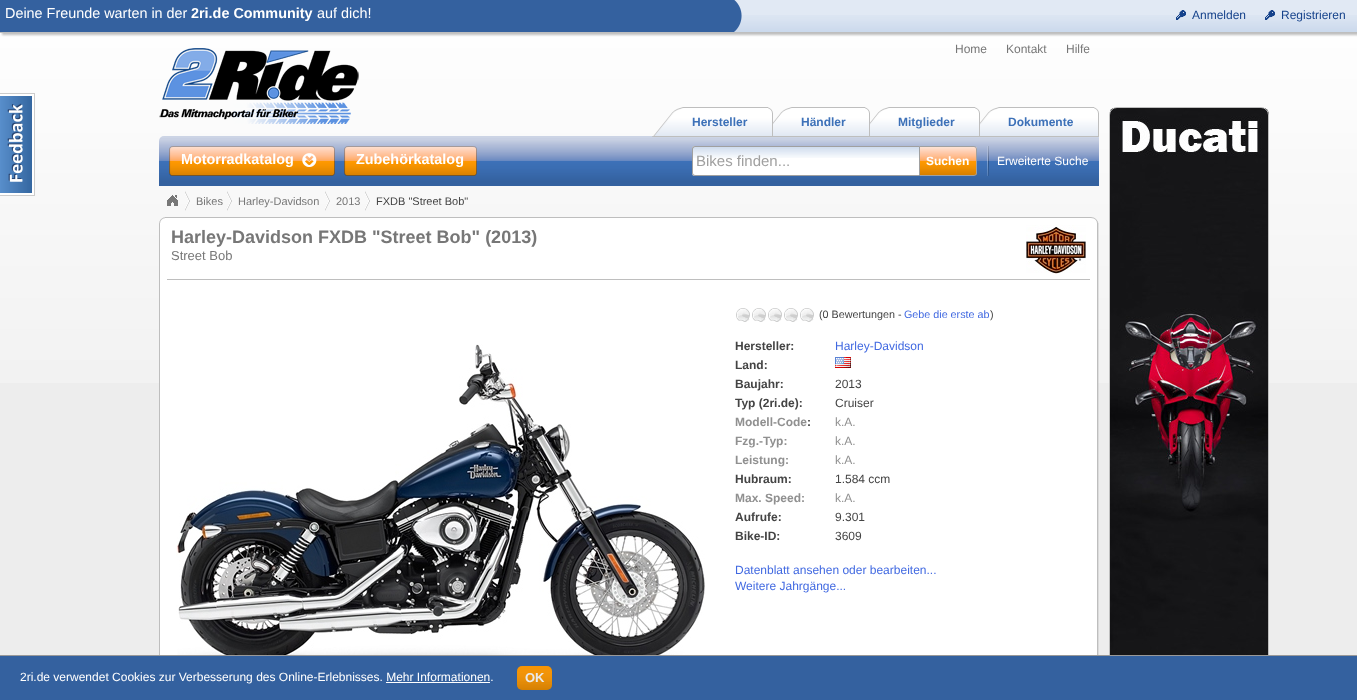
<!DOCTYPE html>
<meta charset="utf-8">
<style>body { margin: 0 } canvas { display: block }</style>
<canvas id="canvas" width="1357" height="700"></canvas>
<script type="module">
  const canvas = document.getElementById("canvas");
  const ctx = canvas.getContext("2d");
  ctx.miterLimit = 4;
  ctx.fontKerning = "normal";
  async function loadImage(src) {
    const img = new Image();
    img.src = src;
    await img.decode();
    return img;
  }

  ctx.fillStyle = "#ededed";
  ctx.fillRect(0, 0, 1357, 700);
  ctx.drawImage(await loadImage("img1.png"), 0, 33, 1357, 350);
  ctx.fillStyle = "#bebebe";
  ctx.filter = "blur(1px)";
  ctx.beginPath();
  ctx.rect(2, 2, 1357, 33);
  ctx.fill();
  ctx.filter = "none";
  ctx.fillStyle = "#e1e9f4";
  ctx.fillRect(734, 0, 623, 15);
  ctx.drawImage(await loadImage("img2.png"), 734, 15, 623, 17);
  ctx.fillStyle = "#bebebe";
  ctx.fillRect(0, 32, 4, 1);
  ctx.fillStyle = "#34619f";
  ctx.fillRect(0, 0, 733, 32);
  ctx.font = "14.4px Liberation Sans";
  ctx.fillStyle = "#ffffff";
  ctx.fillText("Deine Freunde warten in der", 5, 18);
  ctx.font = "bold 14.4px Liberation Sans";
  ctx.fillText("2ri.de Community", 191, 18);
  ctx.font = "14.4px Liberation Sans";
  ctx.fillText("auf dich!", 317, 18);
  ctx.drawImage(await loadImage("img3.png"), 733, 0, 9, 32);
  ctx.drawImage(await loadImage("img4.png"), 1176, 10, 10, 10);
  ctx.font = "12px Liberation Sans";
  ctx.fillStyle = "#15428b";
  ctx.fillText("Anmelden", 1192, 19);
  ctx.drawImage(await loadImage("img4.png"), 1265, 10, 10, 10);
  ctx.fillText("Registrieren", 1281, 19);
  ctx.drawImage(await loadImage("img5.png"), 0, 93, 35, 103);
  ctx.drawImage(await loadImage("img6.png"), 159, 48, 200, 76);
  ctx.fillStyle = "#777777";
  ctx.fillText("Home", 955, 53);
  ctx.fillText("Kontakt", 1006, 53);
  ctx.fillText("Hilfe", 1066, 53);
  ctx.drawImage(await loadImage("img13.png"), 159, 136, 940, 50);
  ctx.drawImage(await loadImage("img7.png"), 652, 107, 116, 30);
  ctx.font = "bold 12px Liberation Sans";
  ctx.fillStyle = "#3d71b8";
  ctx.fillText("Hersteller", 692, 126);
  ctx.drawImage(await loadImage("img9.png"), 768, 107, 97, 30);
  ctx.drawImage(await loadImage("img8.png"), 768, 107, 5, 29);
  ctx.fillText("Händler", 801, 126);
  ctx.drawImage(await loadImage("img10.png"), 865, 107, 110, 30);
  ctx.drawImage(await loadImage("img8.png"), 865, 107, 5, 29);
  ctx.fillText("Mitglieder", 898, 126);
  ctx.drawImage(await loadImage("img11.png"), 975, 107, 119, 30);
  ctx.drawImage(await loadImage("img8.png"), 975, 107, 5, 29);
  ctx.fillText("Dokumente", 1008, 126);
  ctx.drawImage(await loadImage("img12.png"), 1094, 107, 5, 30);
  ctx.drawImage(await loadImage("img14.png"), 169, 146, 166, 30);
  ctx.font = "bold 14.4px Liberation Sans";
  ctx.fillStyle = "#ffffff";
  ctx.fillText("Motorradkatalog", 181, 164);
  ctx.drawImage(await loadImage("img15.png"), 302, 153, 15, 14);
  ctx.drawImage(await loadImage("img16.png"), 344, 146, 133, 30);
  ctx.fillText("Zubehörkatalog", 356, 164);
  ctx.beginPath();
  ctx.roundRect(692, 146, 227, 30, [3, 0, 0, 3]);
  ctx.fill();
  ctx.drawImage(await loadImage("img17.png"), 692, 147, 227, 11);
  ctx.fillStyle = "#a0a0a0";
  ctx.beginPath();
  ctx.moveTo(695, 146);
  ctx.lineTo(919, 146);
  ctx.lineTo(919, 176);
  ctx.lineTo(695, 176);
  ctx.bezierCurveTo(693, 176, 692, 175, 692, 173);
  ctx.lineTo(692, 149);
  ctx.bezierCurveTo(692, 147, 693, 146, 695, 146);
  ctx.closePath();
  ctx.moveTo(695, 147);
  ctx.lineTo(919, 147);
  ctx.lineTo(919, 175);
  ctx.lineTo(695, 175);
  ctx.bezierCurveTo(694, 175, 693, 174, 693, 173);
  ctx.lineTo(693, 149);
  ctx.bezierCurveTo(693, 148, 694, 147, 695, 147);
  ctx.closePath();
  ctx.fill("evenodd");
  ctx.font = "15px Liberation Sans";
  ctx.fillText("Bikes finden...", 696, 166);
  ctx.drawImage(await loadImage("img18.png"), 920, 147, 57, 28);
  ctx.beginPath();
  ctx.roundRect(919.5, 146.5, 57, 29, [0, 2.5, 2.5, 0]);
  ctx.strokeStyle = "#a0a0a0";
  ctx.stroke();
  ctx.font = "bold 12px Liberation Sans";
  ctx.fillStyle = "#ffffff";
  ctx.fillText("Suchen", 926, 165);
  ctx.drawImage(await loadImage("img19.png"), 987, 146, 2, 30);
  ctx.font = "12px Liberation Sans";
  ctx.fillText("Erweiterte Suche", 997, 165);
  ctx.drawImage(await loadImage("img20.png"), 1110, 108, 159, 547);
  ctx.beginPath();
  ctx.roundRect(1109.5, 107.5, 159, 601, 7.5);
  ctx.strokeStyle = "#bebebe";
  ctx.stroke();
  ctx.drawImage(await loadImage("img21.png"), 185, 191, 5, 20);
  ctx.drawImage(await loadImage("img22.png"), 167, 195, 11, 11);
  ctx.drawImage(await loadImage("img21.png"), 227, 191, 5, 20);
  ctx.font = "11px Liberation Sans";
  ctx.fillStyle = "#777777";
  ctx.fillText("Bikes", 196, 205);
  ctx.drawImage(await loadImage("img21.png"), 325, 191, 5, 20);
  ctx.fillText("Harley-Davidson", 238, 205);
  ctx.drawImage(await loadImage("img21.png"), 365, 191, 5, 20);
  ctx.fillText("2013", 336, 205);
  ctx.fillStyle = "#444444";
  ctx.fillText("FXDB \"Street Bob\"", 376, 205);
  ctx.drawImage(await loadImage("img23.png"), 165, 217, 934, 6);
  ctx.drawImage(await loadImage("img24.png"), 159, 217, 6, 10);
  ctx.drawImage(await loadImage("img25.png"), 160, 223, 939, 432);
  ctx.fillStyle = "#bebebe";
  ctx.fillRect(159, 227, 1, 428);
  ctx.fillRect(167, 279, 923, 1);
  ctx.font = "bold 18px Liberation Sans";
  ctx.fillStyle = "#777777";
  ctx.fillText("Harley-Davidson FXDB \"Street Bob\" (2013)", 171, 243);
  ctx.drawImage(await loadImage("img26.png"), 1026, 225, 60, 49);
  ctx.font = "13px Liberation Sans";
  ctx.fillText("Street Bob", 171, 260);
  ctx.drawImage(await loadImage("img27.png"), 176, 344, 529, 311);
  ctx.drawImage(await loadImage("img28.png"), 736, 308, 78, 14);
  ctx.font = "10.75px Liberation Sans";
  ctx.fillStyle = "#444444";
  ctx.fillText("(0 Bewertungen -", 819, 318);
  ctx.fillStyle = "#4169e1";
  ctx.fillText("Gebe die erste ab", 904, 318);
  ctx.fillStyle = "#444444";
  ctx.fillText(")", 990, 318);
  ctx.font = "bold 12px Liberation Sans";
  ctx.fillText("Hersteller:", 735, 350);
  ctx.font = "12px Liberation Sans";
  ctx.fillStyle = "#4169e1";
  ctx.fillText("Harley-Davidson", 835, 350);
  ctx.font = "bold 12px Liberation Sans";
  ctx.fillStyle = "#444444";
  ctx.fillText("Land:", 735, 369);
  ctx.drawImage(await loadImage("img29.png"), 835, 357, 16, 11);
  ctx.fillText("Baujahr:", 735, 388);
  ctx.font = "12px Liberation Sans";
  ctx.fillText("2013", 835, 388);
  ctx.font = "bold 12px Liberation Sans";
  ctx.fillText("Typ (2ri.de):", 735, 407);
  ctx.font = "12px Liberation Sans";
  ctx.fillText("Cruiser", 835, 407);
  ctx.font = "bold 12px Liberation Sans";
  ctx.fillStyle = "#909090";
  ctx.fillText("Modell-Code", 735, 426);
  ctx.fillStyle = "#444444";
  ctx.fillText(":", 807, 426);
  ctx.font = "12px Liberation Sans";
  ctx.fillStyle = "#909090";
  ctx.fillText("k.A.", 835, 426);
  ctx.font = "bold 12px Liberation Sans";
  ctx.fillText("Fzg.-Typ:", 735, 445);
  ctx.font = "12px Liberation Sans";
  ctx.fillText("k.A.", 835, 445);
  ctx.font = "bold 12px Liberation Sans";
  ctx.fillText("Leistung:", 735, 464);
  ctx.font = "12px Liberation Sans";
  ctx.fillText("k.A.", 835, 464);
  ctx.font = "bold 12px Liberation Sans";
  ctx.fillStyle = "#444444";
  ctx.fillText("Hubraum:", 735, 483);
  ctx.font = "12px Liberation Sans";
  ctx.fillText("1.584 ccm", 835, 483);
  ctx.font = "bold 12px Liberation Sans";
  ctx.fillStyle = "#909090";
  ctx.fillText("Max. Speed:", 735, 502);
  ctx.font = "12px Liberation Sans";
  ctx.fillText("k.A.", 835, 502);
  ctx.font = "bold 12px Liberation Sans";
  ctx.fillStyle = "#444444";
  ctx.fillText("Aufrufe:", 735, 521);
  ctx.font = "12px Liberation Sans";
  ctx.fillText("9.301", 835, 521);
  ctx.font = "bold 12px Liberation Sans";
  ctx.fillText("Bike-ID:", 735, 540);
  ctx.font = "12px Liberation Sans";
  ctx.fillText("3609", 835, 540);
  ctx.fillStyle = "#4169e1";
  ctx.fillText("Datenblatt ansehen oder bearbeiten...", 735, 574);
  ctx.fillText("Weitere Jahrgänge...", 735, 590);
  ctx.fillStyle = "#34619f";
  ctx.fillRect(0, 656, 1357, 44);
  ctx.fillStyle = "#999999";
  ctx.fillRect(0, 655, 1357, 1);
  ctx.fillStyle = "#ffffff";
  ctx.fillText("2ri.de verwendet Cookies zur Verbesserung des Online-Erlebnisses. Mehr Informationen.", 20, 681);
  ctx.fillStyle = "#f79400";
  ctx.beginPath();
  ctx.roundRect(517, 666, 35, 24, 5);
  ctx.fill();
  ctx.drawImage(await loadImage("img30.png"), 517, 667, 35, 23);
  ctx.font = "bold 13px Liberation Sans";
  ctx.fillStyle = "#e9e9e9";
  ctx.fillText("OK", 525, 682);
  ctx.fillStyle = "#ffffff";
  ctx.fillRect(386, 682, 104, 1);
</script>
